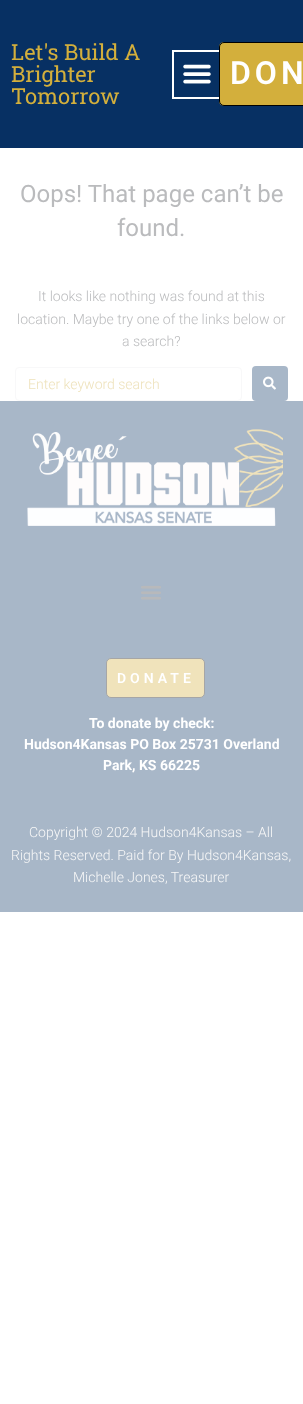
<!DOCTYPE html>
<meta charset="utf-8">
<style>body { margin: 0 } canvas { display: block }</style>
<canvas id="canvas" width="303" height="1404"></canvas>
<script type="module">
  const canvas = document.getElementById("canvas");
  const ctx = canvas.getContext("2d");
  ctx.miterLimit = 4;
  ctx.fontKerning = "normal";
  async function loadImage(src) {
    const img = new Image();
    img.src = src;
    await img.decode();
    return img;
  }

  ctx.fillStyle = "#ffffff";
  ctx.fillRect(0, 0, 303, 1404);
  ctx.fillStyle = "#073063";
  ctx.fillRect(0, 0, 303, 148);
  ctx.font = "22px Roboto Slab";
  ctx.fillStyle = "#d3af3c";
  ctx.fillText("Let's Build A", 11, 60);
  ctx.fillText("Brighter", 11, 82);
  ctx.fillText("Tomorrow", 11, 104);
  ctx.strokeStyle = "#ffffff";
  ctx.lineWidth = 2;
  ctx.strokeRect(173, 51, 47, 47);
  ctx.drawImage(await loadImage("img1.png"), 183, 64, 28, 20);
  ctx.beginPath();
  ctx.roundRect(219, 42, 84, 64, [5, 0, 0, 5]);
  ctx.fill();
  ctx.beginPath();
  ctx.roundRect(219.5, 42.5, 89, 63, 4.5);
  ctx.strokeStyle = "#000000";
  ctx.lineWidth = 1;
  ctx.stroke();
  ctx.letterSpacing = "4px";
  ctx.font = "600 32px Roboto";
  ctx.fillStyle = "#ffffff";
  ctx.fillText("DON", 230, 84);
  ctx.letterSpacing = "0px";
  ctx.font = "24px Roboto";
  ctx.fillStyle = "#babbbd";
  ctx.fillText("Oops! That page can’t be", 20, 202);
  ctx.fillText("found.", 117, 236);
  ctx.font = "300 14px Roboto";
  ctx.fillText("It looks like nothing was found at this", 38, 301);
  ctx.fillText("location. Maybe try one of the links below or", 17, 324);
  ctx.fillText("a search?", 122, 346);
  ctx.beginPath();
  ctx.roundRect(15.5, 367.5, 226, 33, 3.5);
  ctx.strokeStyle = "#f8f8f9";
  ctx.stroke();
  ctx.fillStyle = "#eee2bb";
  ctx.fillText("Enter keyword search", 28, 389);
  ctx.fillStyle = "#a8b7c8";
  ctx.beginPath();
  ctx.roundRect(252, 366, 36, 35, 4);
  ctx.fill();
  ctx.drawImage(await loadImage("img2.png"), 263, 376, 13, 14);
  ctx.fillRect(0, 401, 303, 511);
  ctx.drawImage(await loadImage("img3.png"), 27, 429, 256, 97);
  ctx.drawImage(await loadImage("img4.png"), 141, 585, 20, 15);
  ctx.fillStyle = "#f0e3bb";
  ctx.beginPath();
  ctx.roundRect(106.5, 658.5, 98, 39, 4.5);
  ctx.fill();
  ctx.strokeStyle = "#a6a6a6";
  ctx.stroke();
  ctx.letterSpacing = "4px";
  ctx.font = "600 14px Roboto";
  ctx.fillStyle = "#ffffff";
  ctx.fillText("DONATE", 117, 683);
  ctx.letterSpacing = "0px";
  ctx.font = "bold 14px Roboto";
  ctx.fillText("To donate by check:", 89, 728);
  ctx.fillText("Hudson4Kansas PO Box 25731 Overland", 24, 749);
  ctx.fillText("Park, KS 66225", 103, 770);
  ctx.font = "300 14px Roboto";
  ctx.fillStyle = "#f8f8f8";
  ctx.fillText("Copyright © 2024 Hudson4Kansas – All", 29, 837);
  ctx.fillText("Rights Reserved. Paid for By Hudson4Kansas,", 11, 860);
  ctx.fillText("Michelle Jones, Treasurer", 73, 882);
</script>
